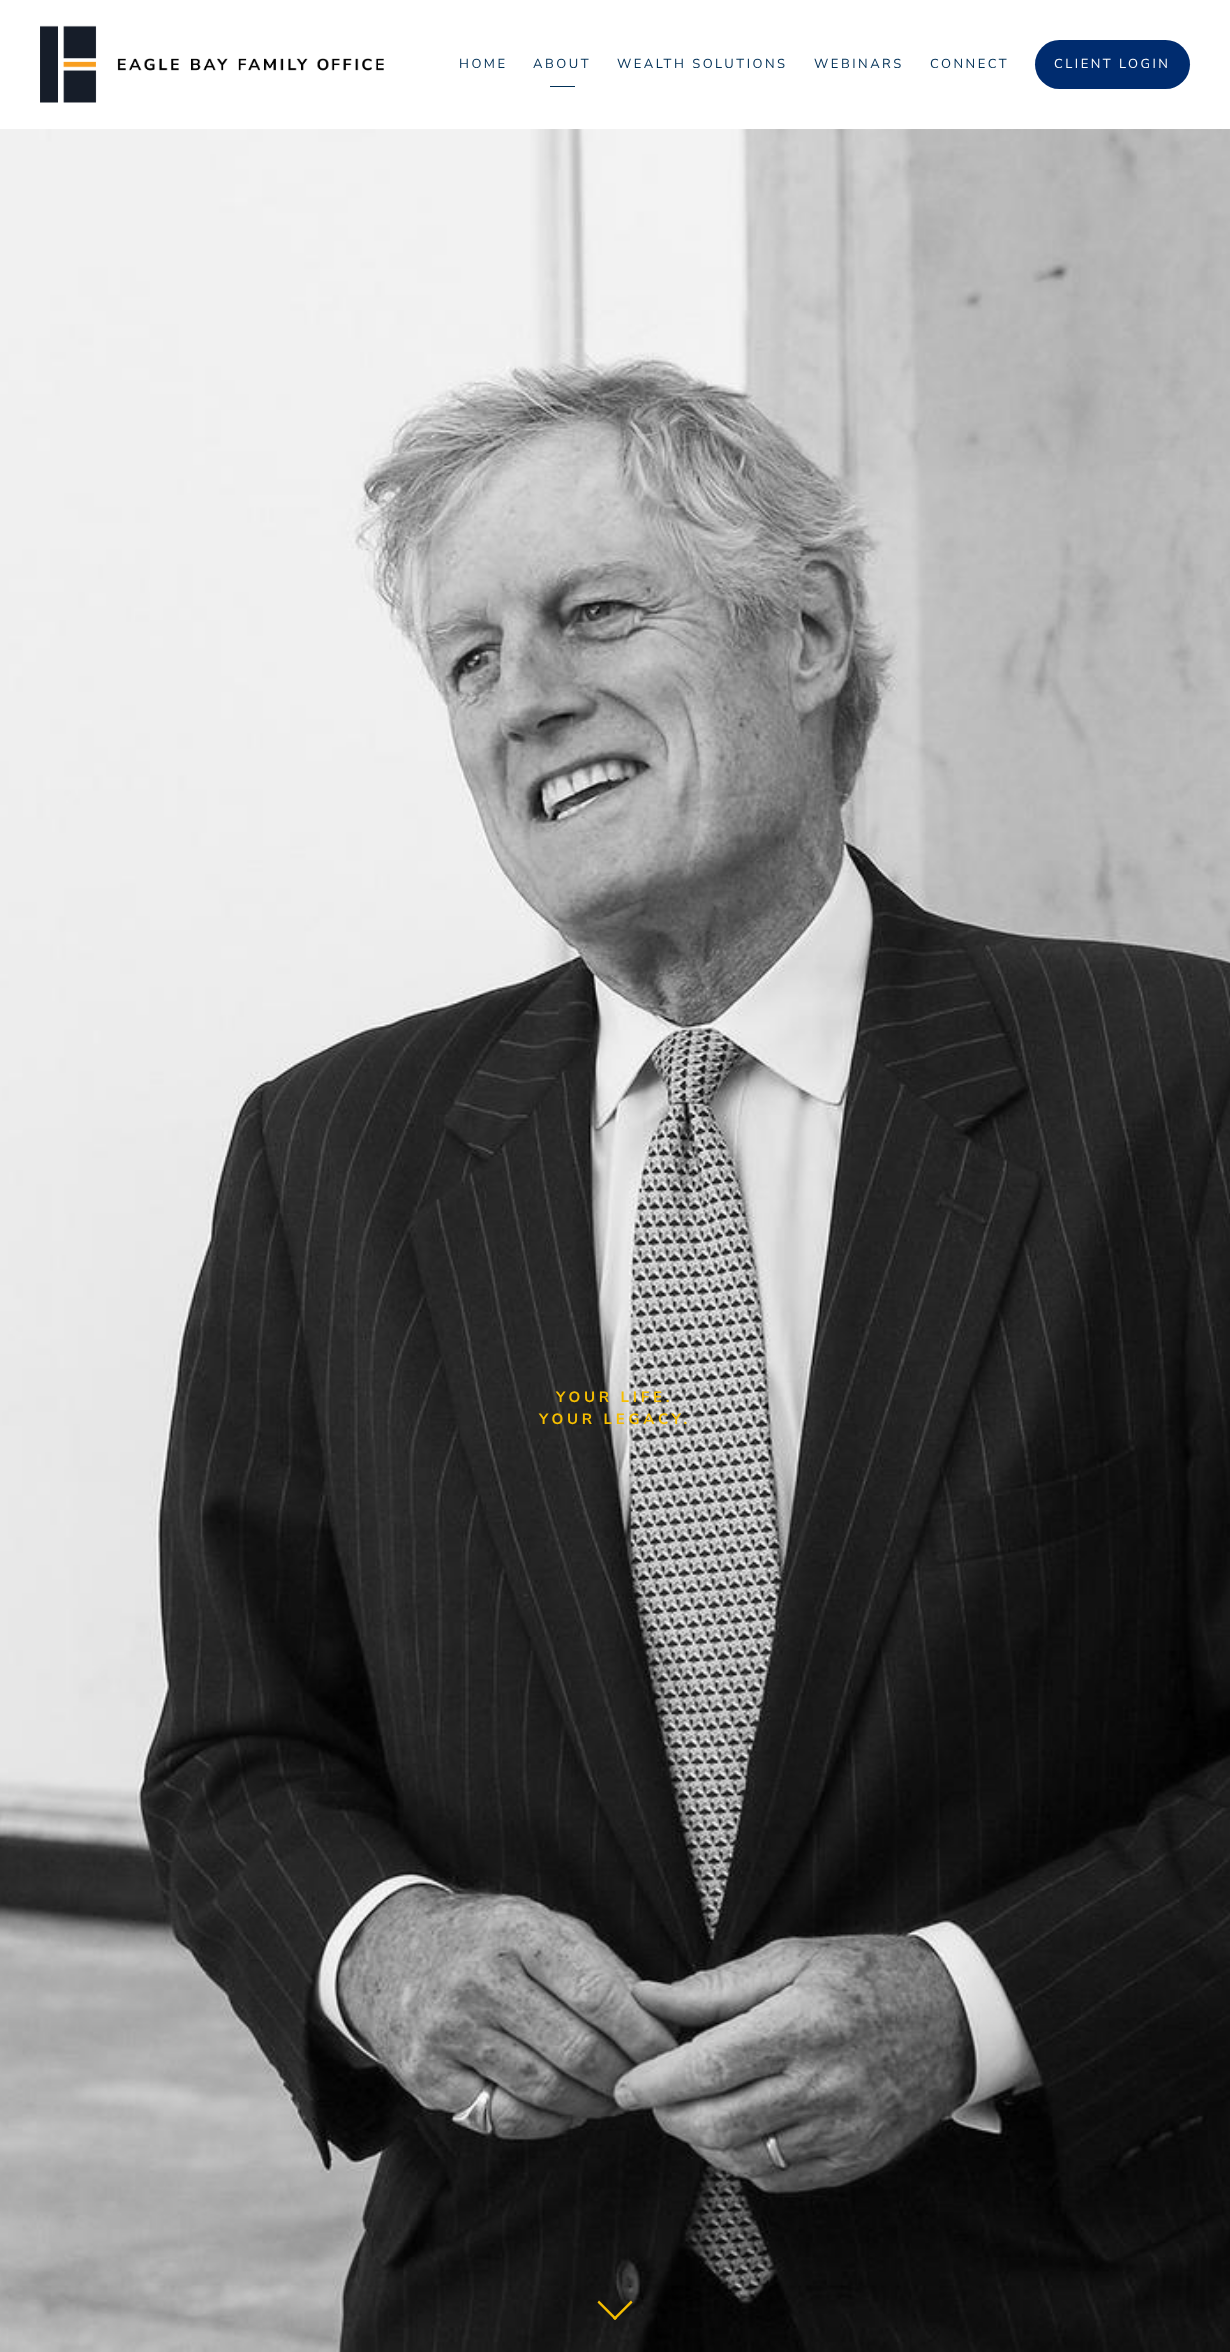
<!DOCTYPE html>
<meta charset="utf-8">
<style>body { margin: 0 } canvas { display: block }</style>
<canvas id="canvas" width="1230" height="2352"></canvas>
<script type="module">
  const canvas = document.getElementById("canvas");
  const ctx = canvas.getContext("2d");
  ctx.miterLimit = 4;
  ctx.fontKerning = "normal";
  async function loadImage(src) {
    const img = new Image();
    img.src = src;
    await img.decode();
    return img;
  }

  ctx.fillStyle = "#ffffff";
  ctx.fillRect(0, 0, 1230, 2352);
  ctx.drawImage(await loadImage("img1.png"), 40, 25, 344, 78);
  ctx.letterSpacing = "2.5px";
  ctx.font = "13px Nunito Sans";
  ctx.fillStyle = "#003057";
  ctx.fillText("HOME", 459, 68);
  ctx.fillText("ABOUT", 533, 68);
  ctx.fillRect(550, 86, 25, 1);
  ctx.fillText("WEALTH SOLUTIONS", 617, 68);
  ctx.fillText("WEBINARS", 814, 68);
  ctx.fillText("CONNECT", 930, 68);
  ctx.fillStyle = "#002c6f";
  ctx.beginPath();
  ctx.roundRect(1035, 40, 155, 49, 24.5);
  ctx.fill();
  ctx.fillStyle = "#ffffff";
  ctx.fillText("CLIENT LOGIN", 1054, 68);
  ctx.drawImage(await loadImage("img2.png"), 0, 129, 1230, 2223);
  ctx.letterSpacing = "3.75px";
  ctx.font = "bold 15px Nunito Sans";
  ctx.fillStyle = "#f6be00";
  ctx.fillText("YOUR LIFE.", 556, 1402);
  ctx.fillText("YOUR LEGACY.", 539, 1424);
  ctx.beginPath();
  ctx.moveTo(631, 2300.5);
  ctx.lineTo(632.5, 2302.5);
  ctx.lineTo(615, 2320);
  ctx.lineTo(613, 2318.5);
  ctx.closePath();
  ctx.fill();
  ctx.beginPath();
  ctx.moveTo(599, 2300.5);
  ctx.lineTo(617, 2318.5);
  ctx.lineTo(615, 2320);
  ctx.lineTo(597.5, 2302.5);
  ctx.closePath();
  ctx.fill();
</script>
